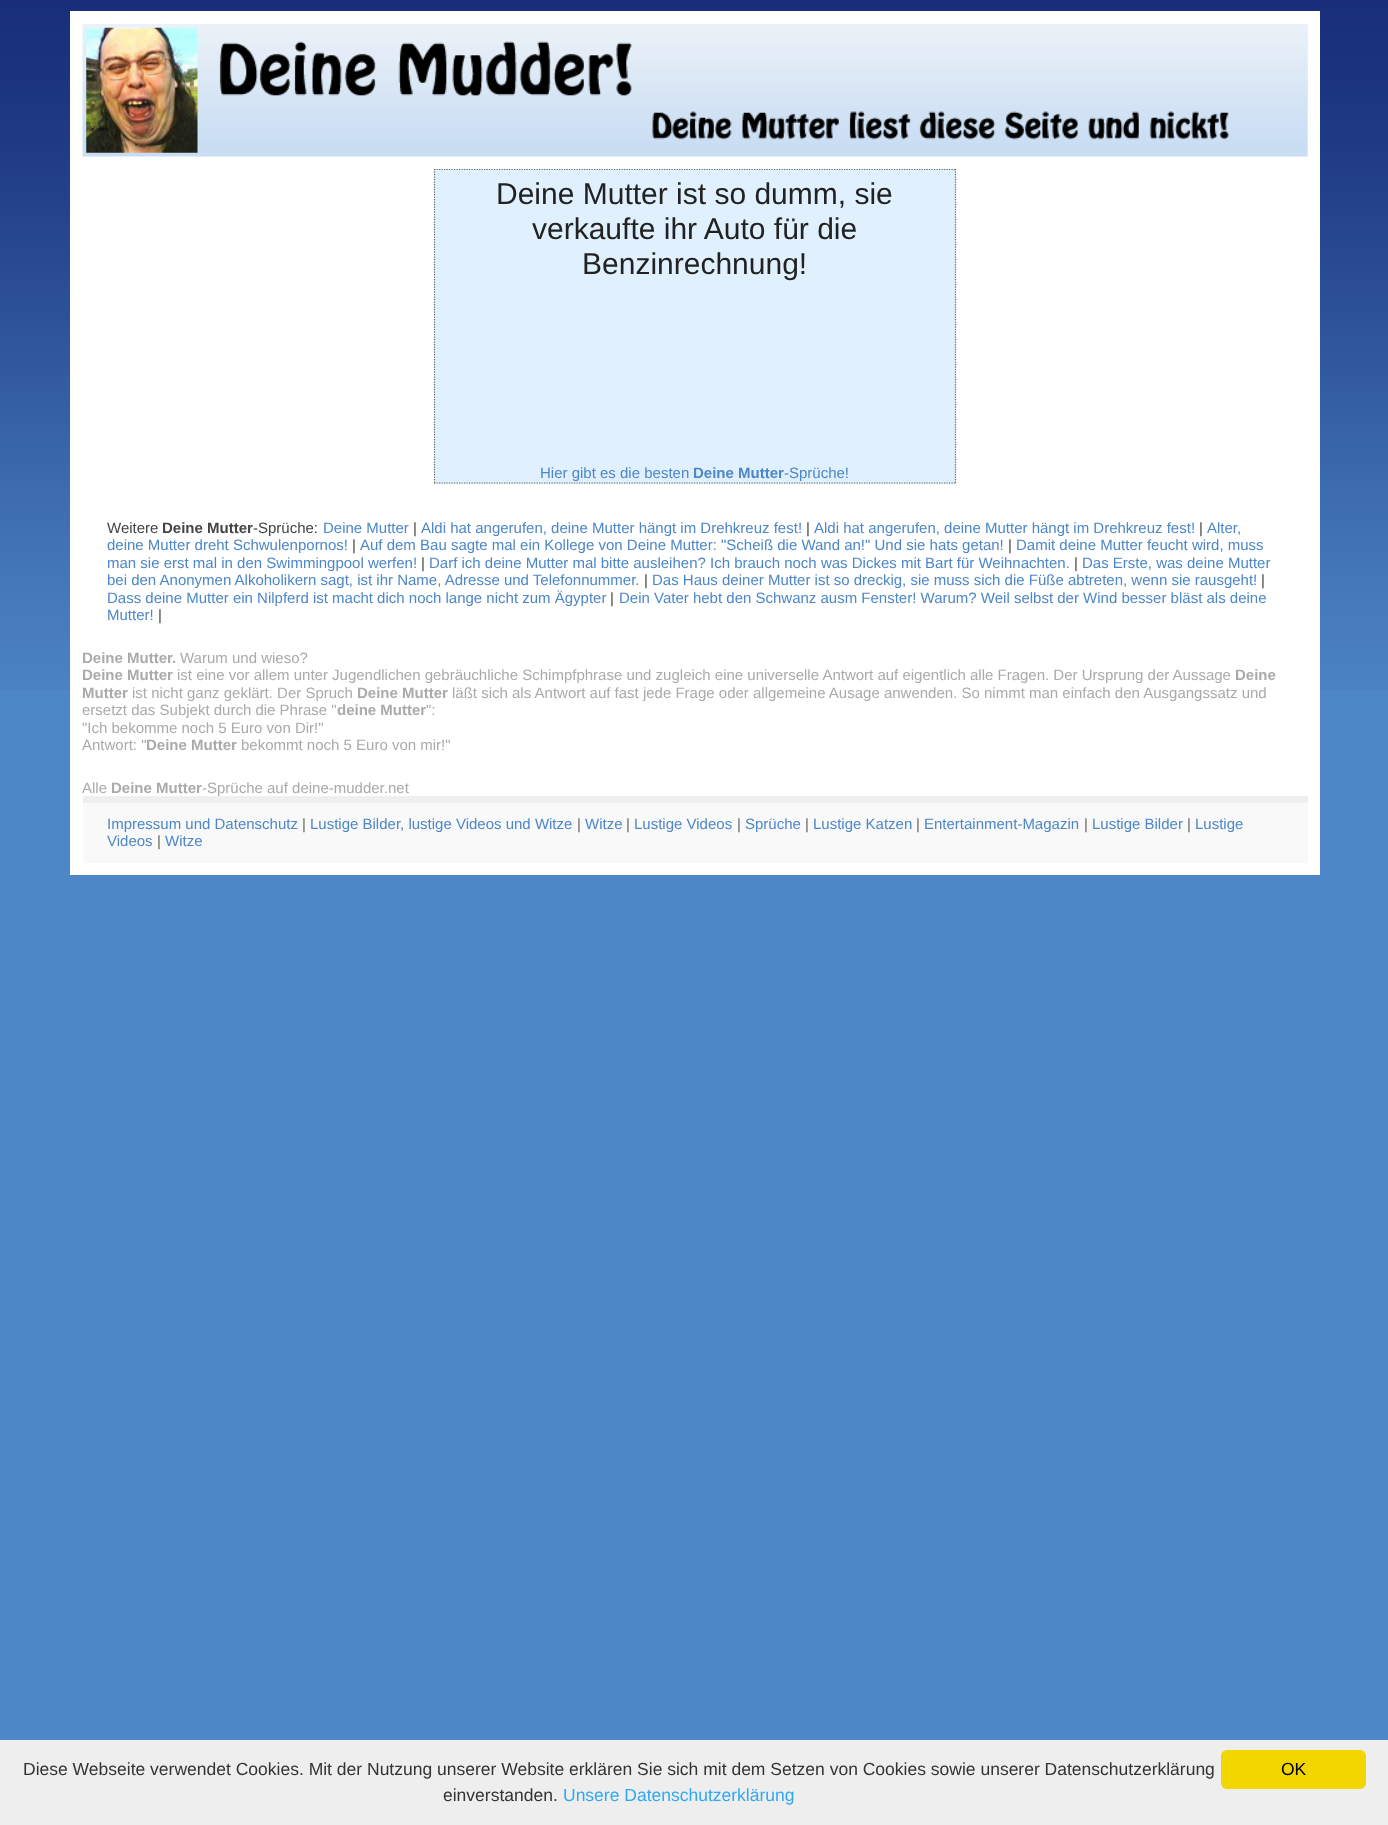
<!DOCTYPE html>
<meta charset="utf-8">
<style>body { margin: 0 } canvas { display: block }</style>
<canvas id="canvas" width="1388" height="1825"></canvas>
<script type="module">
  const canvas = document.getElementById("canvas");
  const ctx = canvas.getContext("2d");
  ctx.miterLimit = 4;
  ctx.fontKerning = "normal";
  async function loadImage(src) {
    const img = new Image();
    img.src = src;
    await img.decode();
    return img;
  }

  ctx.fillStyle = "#4d87c7";
  ctx.fillRect(0, 0, 1388, 1825);
  ctx.drawImage(await loadImage("img1.png"), 0, 0, 1388, 690);
  ctx.fillStyle = "#ffffff";
  ctx.fillRect(70, 11, 1250, 864);
  ctx.fillStyle = "#edf2f8";
  ctx.fillRect(1307, 24, 1, 132);
  ctx.drawImage(await loadImage("img2.png"), 82, 24, 1226, 133);
  ctx.drawImage(await loadImage("img3.png"), 86, 27, 1143, 126);
  ctx.fillStyle = "#e0f0ff";
  ctx.fillRect(434, 169, 522, 315);
  ctx.beginPath();
  ctx.moveTo(434, 169.5);
  ctx.lineTo(956, 169.5);
  ctx.strokeStyle = "#666666";
  ctx.lineWidth = 1.2;
  ctx.setLineDash([1.25, 1.25]);
  ctx.stroke();
  ctx.beginPath();
  ctx.moveTo(955.5, 169);
  ctx.lineTo(955.5, 484);
  ctx.stroke();
  ctx.beginPath();
  ctx.moveTo(434, 483);
  ctx.lineTo(956, 483);
  ctx.stroke();
  ctx.beginPath();
  ctx.moveTo(434.5, 169);
  ctx.lineTo(434.5, 484);
  ctx.stroke();
  ctx.font = "30px Liberation Sans";
  ctx.fillStyle = "#222222";
  ctx.fillText("Deine Mutter ist so dumm, sie", 496, 204);
  ctx.fillText("verkaufte ihr Auto für die", 532, 239);
  ctx.fillText("Benzinrechnung!", 582, 274);
  ctx.font = "15px Liberation Sans";
  ctx.fillStyle = "#4d87c7";
  ctx.fillText("Hier gibt es die besten", 540, 478);
  ctx.font = "bold 15px Liberation Sans";
  ctx.fillText("Deine Mutter", 693, 478);
  ctx.font = "15px Liberation Sans";
  ctx.fillText("-Sprüche!", 784, 478);
  ctx.fillStyle = "#444444";
  ctx.fillText("Weitere", 107, 533);
  ctx.font = "bold 15px Liberation Sans";
  ctx.fillText("Deine Mutter", 162, 533);
  ctx.font = "15px Liberation Sans";
  ctx.fillText("-Sprüche:", 253, 533);
  ctx.fillStyle = "#4d87c7";
  ctx.fillText("Deine Mutter", 323, 533);
  ctx.fillStyle = "#444444";
  ctx.fillText("|", 413, 533);
  ctx.fillStyle = "#4d87c7";
  ctx.fillText("Aldi hat angerufen, deine Mutter hängt im Drehkreuz fest!", 421, 533);
  ctx.fillStyle = "#444444";
  ctx.fillText("|", 806, 533);
  ctx.fillStyle = "#4d87c7";
  ctx.fillText("Aldi hat angerufen, deine Mutter hängt im Drehkreuz fest!", 814, 533);
  ctx.fillStyle = "#444444";
  ctx.fillText("|", 1199, 533);
  ctx.fillStyle = "#4d87c7";
  ctx.fillText("Alter,", 1207, 533);
  ctx.fillText("deine Mutter dreht Schwulenpornos!", 107, 550);
  ctx.fillStyle = "#444444";
  ctx.fillText("|", 352, 550);
  ctx.fillStyle = "#4d87c7";
  ctx.fillText("Auf dem Bau sagte mal ein Kollege von Deine Mutter: \"Scheiß die Wand an!\" Und sie hats getan!", 360, 550);
  ctx.fillStyle = "#444444";
  ctx.fillText("|", 1008, 550);
  ctx.fillStyle = "#4d87c7";
  ctx.fillText("Damit deine Mutter feucht wird, muss", 1016, 550);
  ctx.fillText("man sie erst mal in den Swimmingpool werfen!", 107, 568);
  ctx.fillStyle = "#444444";
  ctx.fillText("|", 421, 568);
  ctx.fillStyle = "#4d87c7";
  ctx.fillText("Darf ich deine Mutter mal bitte ausleihen? Ich brauch noch was Dickes mit Bart für Weihnachten.", 429, 568);
  ctx.fillStyle = "#444444";
  ctx.fillText("|", 1074, 568);
  ctx.fillStyle = "#4d87c7";
  ctx.fillText("Das Erste, was deine Mutter", 1082, 568);
  ctx.fillText("bei den Anonymen Alkoholikern sagt, ist ihr Name, Adresse und Telefonnummer.", 107, 585);
  ctx.fillStyle = "#444444";
  ctx.fillText("|", 644, 585);
  ctx.fillStyle = "#4d87c7";
  ctx.fillText("Das Haus deiner Mutter ist so dreckig, sie muss sich die Füße abtreten, wenn sie rausgeht!", 652, 585);
  ctx.fillStyle = "#444444";
  ctx.fillText("|", 1261, 585);
  ctx.fillStyle = "#4d87c7";
  ctx.fillText("Dass deine Mutter ein Nilpferd ist macht dich noch lange nicht zum Ägypter", 107, 603);
  ctx.fillStyle = "#444444";
  ctx.fillText("|", 610, 603);
  ctx.fillStyle = "#4d87c7";
  ctx.fillText("Dein Vater hebt den Schwanz ausm Fenster! Warum? Weil selbst der Wind besser bläst als deine", 619, 603);
  ctx.fillText("Mutter!", 107, 620);
  ctx.fillStyle = "#444444";
  ctx.fillText("|", 158, 620);
  ctx.font = "bold 15px Liberation Sans";
  ctx.fillStyle = "#aaaaaa";
  ctx.fillText("Deine Mutter.", 82, 663);
  ctx.font = "15px Liberation Sans";
  ctx.fillText("Warum und wieso?", 180, 663);
  ctx.font = "bold 15px Liberation Sans";
  ctx.fillText("Deine Mutter", 82, 680);
  ctx.font = "15px Liberation Sans";
  ctx.fillText("ist eine vor allem unter Jugendlichen gebräuchliche Schimpfphrase und zugleich eine universelle Antwort auf eigentlich alle Fragen. Der Ursprung der Aussage", 177, 680);
  ctx.font = "bold 15px Liberation Sans";
  ctx.fillText("Deine", 1235, 680);
  ctx.fillText("Mutter", 82, 698);
  ctx.font = "15px Liberation Sans";
  ctx.fillText("ist nicht ganz geklärt. Der Spruch", 132, 698);
  ctx.font = "bold 15px Liberation Sans";
  ctx.fillText("Deine Mutter", 357, 698);
  ctx.font = "15px Liberation Sans";
  ctx.fillText("läßt sich als Antwort auf fast jede Frage oder allgemeine Ausage anwenden. So nimmt man einfach den Ausgangssatz und", 452, 698);
  ctx.fillText("ersetzt das Subjekt durch die Phrase \"", 82, 715);
  ctx.font = "bold 15px Liberation Sans";
  ctx.fillText("deine Mutter", 337, 715);
  ctx.font = "15px Liberation Sans";
  ctx.fillText("\":", 426, 715);
  ctx.fillText("\"Ich bekomme noch 5 Euro von Dir!\"", 82, 733);
  ctx.fillText("Antwort: \"", 82, 750);
  ctx.font = "bold 15px Liberation Sans";
  ctx.fillText("Deine Mutter", 146, 750);
  ctx.font = "15px Liberation Sans";
  ctx.fillText("bekommt noch 5 Euro von mir!\"", 241, 750);
  ctx.fillText("Alle", 82, 793);
  ctx.font = "bold 15px Liberation Sans";
  ctx.fillText("Deine Mutter", 111, 793);
  ctx.fillStyle = "#efefef";
  ctx.fillRect(83, 796, 1225, 7);
  ctx.font = "15px Liberation Sans";
  ctx.fillStyle = "#aaaaaa";
  ctx.fillText("-Sprüche auf deine-mudder.net", 202, 793);
  ctx.fillStyle = "#f9f9f9";
  ctx.fillRect(83, 803, 1225, 60);
  ctx.fillStyle = "#4d87c7";
  ctx.fillText("Impressum und Datenschutz", 107, 829);
  ctx.fillStyle = "#666666";
  ctx.fillText("|", 302, 829);
  ctx.fillStyle = "#4d87c7";
  ctx.fillText("Lustige Bilder, lustige Videos und Witze", 310, 829);
  ctx.fillStyle = "#666666";
  ctx.fillText("|", 577, 829);
  ctx.fillStyle = "#4d87c7";
  ctx.fillText("Witze", 585, 829);
  ctx.fillStyle = "#666666";
  ctx.fillText("|", 626, 829);
  ctx.fillStyle = "#4d87c7";
  ctx.fillText("Lustige Videos", 634, 829);
  ctx.fillStyle = "#666666";
  ctx.fillText("|", 737, 829);
  ctx.fillStyle = "#4d87c7";
  ctx.fillText("Sprüche", 745, 829);
  ctx.fillStyle = "#666666";
  ctx.fillText("|", 805, 829);
  ctx.fillStyle = "#4d87c7";
  ctx.fillText("Lustige Katzen", 813, 829);
  ctx.fillStyle = "#666666";
  ctx.fillText("|", 916, 829);
  ctx.fillStyle = "#4d87c7";
  ctx.fillText("Entertainment-Magazin", 924, 829);
  ctx.fillStyle = "#666666";
  ctx.fillText("|", 1084, 829);
  ctx.fillStyle = "#4d87c7";
  ctx.fillText("Lustige Bilder", 1092, 829);
  ctx.fillStyle = "#666666";
  ctx.fillText("|", 1187, 829);
  ctx.fillStyle = "#4d87c7";
  ctx.fillText("Lustige", 1195, 829);
  ctx.fillText("Videos", 107, 846);
  ctx.fillStyle = "#666666";
  ctx.fillText("|", 157, 846);
  ctx.fillStyle = "#4d87c7";
  ctx.fillText("Witze", 165, 846);
  ctx.fillStyle = "#eeeeee";
  ctx.fillRect(0, 1740, 1388, 85);
  ctx.font = "17.5px Liberation Sans";
  ctx.fillStyle = "#333333";
  ctx.fillText("Diese Webseite verwendet Cookies. Mit der Nutzung unserer Website erklären Sie sich mit dem Setzen von Cookies sowie unserer Datenschutzerklärung", 23, 1775);
  ctx.fillText("einverstanden.", 443, 1801);
  ctx.fillStyle = "#31a8f0";
  ctx.fillText("Unsere Datenschutzerklärung", 563, 1801);
  ctx.fillStyle = "#f1d600";
  ctx.beginPath();
  ctx.roundRect(1221, 1750, 145, 39, 6);
  ctx.fill();
  ctx.fillStyle = "#000000";
  ctx.fillText("OK", 1281, 1775);
</script>
